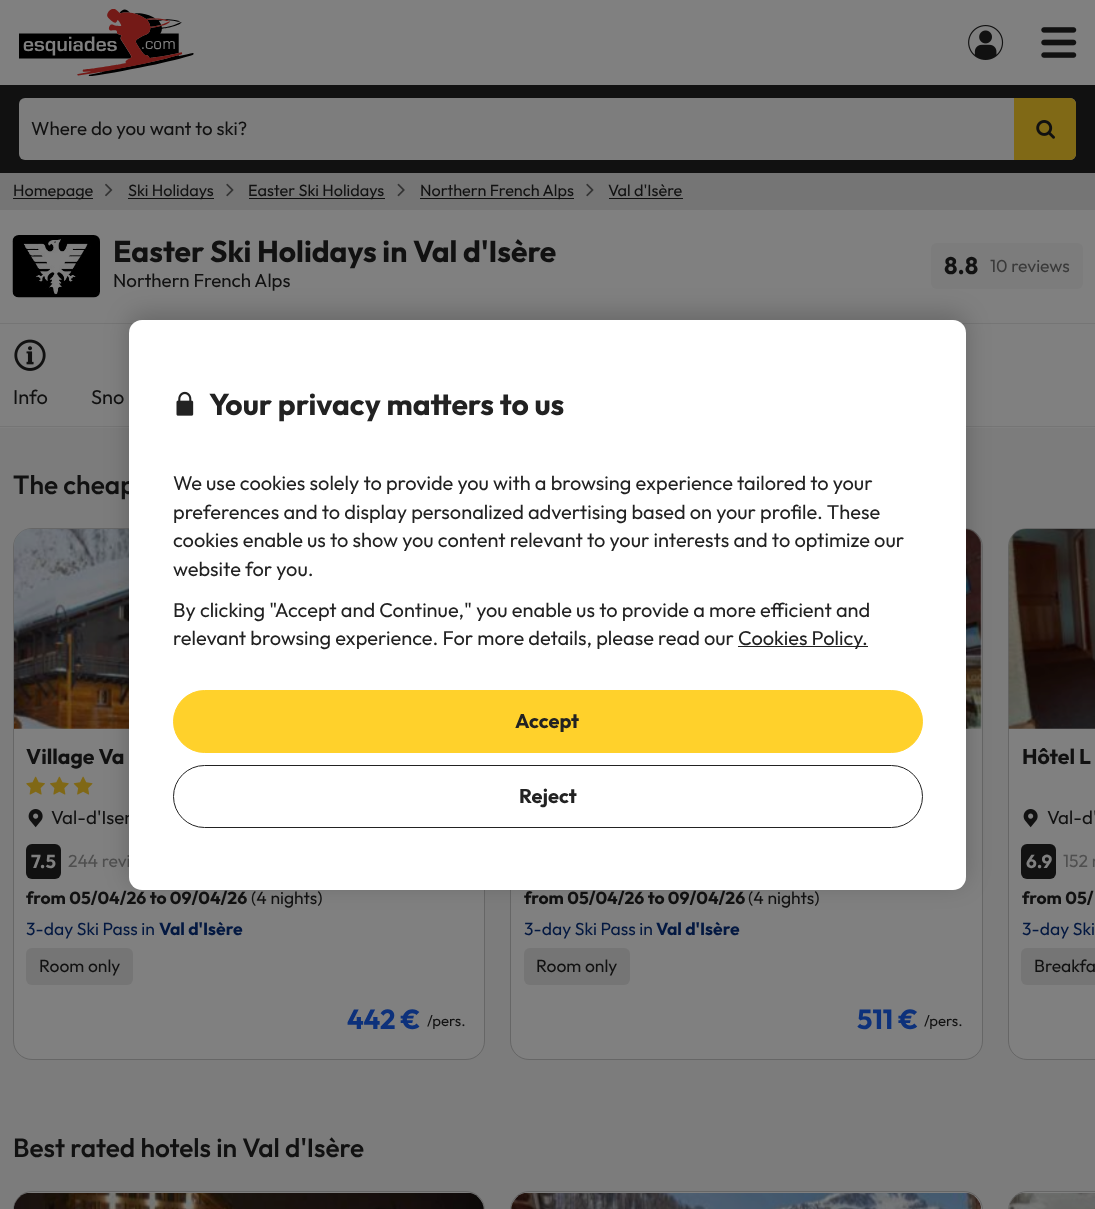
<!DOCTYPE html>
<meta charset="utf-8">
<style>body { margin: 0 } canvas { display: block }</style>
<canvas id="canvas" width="1095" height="1209"></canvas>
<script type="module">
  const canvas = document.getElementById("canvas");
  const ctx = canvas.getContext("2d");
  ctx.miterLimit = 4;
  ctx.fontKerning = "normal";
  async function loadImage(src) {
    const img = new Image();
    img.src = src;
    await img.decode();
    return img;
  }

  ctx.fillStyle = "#808080";
  ctx.fillRect(0, 0, 1095, 1209);
  ctx.drawImage(await loadImage("img1.png"), 19, 9, 175, 67);
  ctx.drawImage(await loadImage("img2.png"), 968, 25, 36, 35);
  ctx.drawImage(await loadImage("img3.png"), 1041, 27, 36, 31);
  ctx.fillStyle = "#111111";
  ctx.fillRect(0, 85, 1095, 88);
  ctx.fillStyle = "#7d7d7d";
  ctx.beginPath();
  ctx.roundRect(19, 98, 1057, 62, 6);
  ctx.fill();
  ctx.font = "18.75px Outfit";
  ctx.fillStyle = "#111111";
  ctx.fillText("Where do you want to ski?", 31, 135);
  ctx.fillStyle = "#806916";
  ctx.beginPath();
  ctx.roundRect(1014, 98, 62, 62, [0, 6, 6, 0]);
  ctx.fill();
  ctx.drawImage(await loadImage("img4.png"), 1036, 120, 19, 19);
  ctx.fillStyle = "#757575";
  ctx.fillRect(0, 173, 1095, 37);
  ctx.fillStyle = "#111111";
  ctx.fillRect(13, 198, 80, 1);
  ctx.font = "16.25px Outfit";
  ctx.fillText("Homepage", 13, 196);
  ctx.drawImage(await loadImage("img5.png"), 105, 183, 8, 14);
  ctx.fillRect(128, 198, 86, 1);
  ctx.fillText("Ski Holidays", 128, 196);
  ctx.drawImage(await loadImage("img6.png"), 226, 183, 8, 14);
  ctx.fillRect(249, 198, 136, 1);
  ctx.fillText("Easter Ski Holidays", 248, 196);
  ctx.drawImage(await loadImage("img7.png"), 397, 183, 8, 14);
  ctx.fillRect(420, 198, 154, 1);
  ctx.fillText("Northern French Alps", 420, 196);
  ctx.drawImage(await loadImage("img6.png"), 586, 183, 8, 14);
  ctx.fillText("Val d'Isère", 608, 196);
  ctx.fillRect(609, 198, 74, 1);
  ctx.drawImage(await loadImage("img8.png"), 12, 235, 88, 63);
  ctx.font = "bold 30px Outfit";
  ctx.fillText("Easter Ski Holidays in Val d'Isère", 113, 262);
  ctx.font = "18.75px Outfit";
  ctx.fillText("Northern French Alps", 113, 287);
  ctx.fillStyle = "#7c7c7c";
  ctx.beginPath();
  ctx.roundRect(931, 243, 152, 46, 6);
  ctx.fill();
  ctx.font = "bold 24px Outfit";
  ctx.fillStyle = "#111111";
  ctx.fillText("8.8", 944, 274);
  ctx.font = "17.5px Outfit";
  ctx.fillStyle = "#3a3a3a";
  ctx.fillText("10 reviews", 990, 272);
  ctx.fillStyle = "#757575";
  ctx.fillRect(0, 323, 1095, 1);
  ctx.fillRect(0, 426, 1095, 1);
  ctx.drawImage(await loadImage("img9.png"), 14, 339, 32, 32);
  ctx.font = "20px Outfit";
  ctx.fillStyle = "#111111";
  ctx.fillText("Info", 13, 404);
  ctx.fillText("Sno", 91, 404);
  ctx.fillStyle = "#7c7c7c";
  ctx.fillRect(0, 428, 1095, 781);
  ctx.font = "500 26.25px Outfit";
  ctx.fillStyle = "#111111";
  ctx.fillText("The cheap", 13, 494);
  ctx.fillStyle = "#808080";
  ctx.beginPath();
  ctx.roundRect(13.5, 528.5, 471, 531, 18.5);
  ctx.fill();
  ctx.strokeStyle = "#666666";
  ctx.stroke();
  ctx.drawImage(await loadImage("img10.png"), 14, 529, 115, 200);
  ctx.font = "bold 21.25px Outfit";
  ctx.fillStyle = "#111111";
  ctx.fillText("Village Va", 26, 764);
  ctx.drawImage(await loadImage("img11.png"), 26, 776, 19, 19);
  ctx.drawImage(await loadImage("img12.png"), 50, 776, 19, 19);
  ctx.drawImage(await loadImage("img13.png"), 73, 776, 20, 19);
  ctx.drawImage(await loadImage("img14.png"), 28, 809, 15, 19);
  ctx.font = "18.75px Outfit";
  ctx.fillText("Val-d'Iser", 51, 824);
  ctx.beginPath();
  ctx.roundRect(26, 844, 35, 35, 6);
  ctx.fill();
  ctx.font = "bold 18.75px Outfit";
  ctx.fillStyle = "#808080";
  ctx.fillText("7.5", 31, 868);
  ctx.font = "17.5px Outfit";
  ctx.fillStyle = "#4f4f4f";
  ctx.fillText("244 revi", 68, 867);
  ctx.font = "bold 17.5px Outfit";
  ctx.fillStyle = "#111111";
  ctx.fillText("from 05/04/26 to 09/04/26", 26, 904);
  ctx.font = "17.5px Outfit";
  ctx.fillText("(4 nights)", 251, 904);
  ctx.fillStyle = "#031841";
  ctx.fillText("3-day Ski Pass in", 26, 935);
  ctx.font = "bold 17.5px Outfit";
  ctx.fillText("Val d'Isère", 159, 935);
  ctx.fillStyle = "#757575";
  ctx.beginPath();
  ctx.roundRect(26, 948, 107, 37, 6);
  ctx.fill();
  ctx.font = "17.5px Outfit";
  ctx.fillStyle = "#111111";
  ctx.fillText("Room only", 39, 972);
  ctx.font = "bold 27.5px Outfit";
  ctx.fillStyle = "#0d317b";
  ctx.fillText("442 €", 347, 1029);
  ctx.font = "15px Outfit";
  ctx.fillStyle = "#111111";
  ctx.fillText("/pers.", 427, 1026);
  ctx.fillStyle = "#808080";
  ctx.beginPath();
  ctx.roundRect(510.5, 528.5, 472, 531, 18.5);
  ctx.fill();
  ctx.stroke();
  ctx.drawImage(await loadImage("img15.png"), 966, 529, 16, 200);
  ctx.font = "bold 17.5px Outfit";
  ctx.fillStyle = "#111111";
  ctx.fillText("from 05/04/26 to 09/04/26", 524, 904);
  ctx.font = "17.5px Outfit";
  ctx.fillText("(4 nights)", 748, 904);
  ctx.fillStyle = "#031841";
  ctx.fillText("3-day Ski Pass in", 524, 935);
  ctx.font = "bold 17.5px Outfit";
  ctx.fillText("Val d'Isère", 656, 935);
  ctx.fillStyle = "#757575";
  ctx.beginPath();
  ctx.roundRect(524, 948, 106, 37, 6);
  ctx.fill();
  ctx.font = "17.5px Outfit";
  ctx.fillStyle = "#111111";
  ctx.fillText("Room only", 536, 972);
  ctx.font = "bold 27.5px Outfit";
  ctx.fillStyle = "#0d317b";
  ctx.fillText("511 €", 857, 1029);
  ctx.font = "15px Outfit";
  ctx.fillStyle = "#111111";
  ctx.fillText("/pers.", 924, 1026);
  ctx.fillStyle = "#808080";
  ctx.beginPath();
  ctx.roundRect(1008, 528, 87, 532, [19, 0, 0, 19]);
  ctx.fill();
  ctx.beginPath();
  ctx.roundRect(1008.5, 528.5, 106, 531, 18.5);
  ctx.stroke();
  ctx.drawImage(await loadImage("img16.png"), 1008, 529, 87, 200);
  ctx.font = "bold 21.25px Outfit";
  ctx.fillStyle = "#111111";
  ctx.fillText("Hôtel L", 1022, 764);
  ctx.drawImage(await loadImage("img14.png"), 1023, 809, 15, 19);
  ctx.font = "18.75px Outfit";
  ctx.fillText("Val-d'", 1047, 824);
  ctx.beginPath();
  ctx.roundRect(1021, 844, 35, 35, 6);
  ctx.fill();
  ctx.font = "bold 18.75px Outfit";
  ctx.fillStyle = "#808080";
  ctx.fillText("6.9", 1026, 868);
  ctx.font = "17.5px Outfit";
  ctx.fillStyle = "#4f4f4f";
  ctx.fillText("152 r", 1063, 867);
  ctx.font = "bold 17.5px Outfit";
  ctx.fillStyle = "#111111";
  ctx.fillText("from 05/", 1022, 904);
  ctx.font = "17.5px Outfit";
  ctx.fillStyle = "#031841";
  ctx.fillText("3-day Ski", 1022, 935);
  ctx.fillStyle = "#757575";
  ctx.beginPath();
  ctx.roundRect(1021, 948, 74, 37, [6, 0, 0, 6]);
  ctx.fill();
  ctx.fillStyle = "#111111";
  ctx.fillText("Breakfa", 1034, 972);
  ctx.font = "500 26.25px Outfit";
  ctx.fillText("Best rated hotels in Val d'Isère", 13, 1157);
  ctx.fillStyle = "#808080";
  ctx.beginPath();
  ctx.roundRect(13.5, 1191.5, 471, 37, 18.5);
  ctx.fill();
  ctx.stroke();
  ctx.drawImage(await loadImage("img17.png"), 14, 1193, 470, 16);
  ctx.beginPath();
  ctx.roundRect(510.5, 1191.5, 472, 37, 18.5);
  ctx.fill();
  ctx.stroke();
  ctx.drawImage(await loadImage("img18.png"), 511, 1193, 470, 16);
  ctx.beginPath();
  ctx.moveTo(1027, 1191);
  ctx.lineTo(1095, 1191);
  ctx.lineTo(1095, 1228);
  ctx.lineTo(1027, 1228);
  ctx.bezierCurveTo(1016.5, 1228, 1008, 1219.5, 1008, 1209);
  ctx.lineTo(1008, 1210);
  ctx.bezierCurveTo(1008, 1199.5, 1016.5, 1191, 1027, 1191);
  ctx.closePath();
  ctx.fill();
  ctx.beginPath();
  ctx.roundRect(1008.5, 1191.5, 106, 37, 18.5);
  ctx.stroke();
  ctx.drawImage(await loadImage("img19.png"), 1009, 1193, 86, 16);
  ctx.fillStyle = "rgba(0, 0, 0, 0.2)";
  ctx.filter = "blur(12.5px)";
  ctx.beginPath();
  ctx.roundRect(129, 314, 837, 570, 13);
  ctx.fill();
  ctx.filter = "none";
  ctx.fillStyle = "#ffffff";
  ctx.beginPath();
  ctx.roundRect(129, 320, 837, 570, 13);
  ctx.fill();
  ctx.drawImage(await loadImage("img20.png"), 176, 391, 18, 25);
  ctx.font = "bold 30px Outfit";
  ctx.fillStyle = "#222222";
  ctx.fillText("Your privacy matters to us", 209, 415);
  ctx.font = "20px Outfit";
  ctx.fillText("We use cookies solely to provide you with a browsing experience tailored to your", 173, 490);
  ctx.fillText("preferences and to display personalized advertising based on your profile. These", 173, 519);
  ctx.fillText("cookies enable us to show you content relevant to your interests and to optimize our", 173, 547);
  ctx.fillText("website for you.", 173, 576);
  ctx.fillText("By clicking \"Accept and Continue,\" you enable us to provide a more efficient and", 173, 617);
  ctx.fillText("relevant browsing experience. For more details, please read our", 173, 645);
  ctx.fillRect(738, 646, 130, 1);
  ctx.fillText("Cookies Policy.", 738, 645);
  ctx.fillStyle = "#ffd12b";
  ctx.beginPath();
  ctx.roundRect(173.5, 690.5, 749, 62, 31);
  ctx.fill();
  ctx.strokeStyle = "#ffd12b";
  ctx.stroke();
  ctx.font = "bold 20px Outfit";
  ctx.fillStyle = "#222222";
  ctx.fillText("Accept", 515, 728);
  ctx.beginPath();
  ctx.roundRect(173.5, 765.5, 749, 62, 31);
  ctx.strokeStyle = "#222222";
  ctx.stroke();
  ctx.fillText("Reject", 519, 803);
</script>
